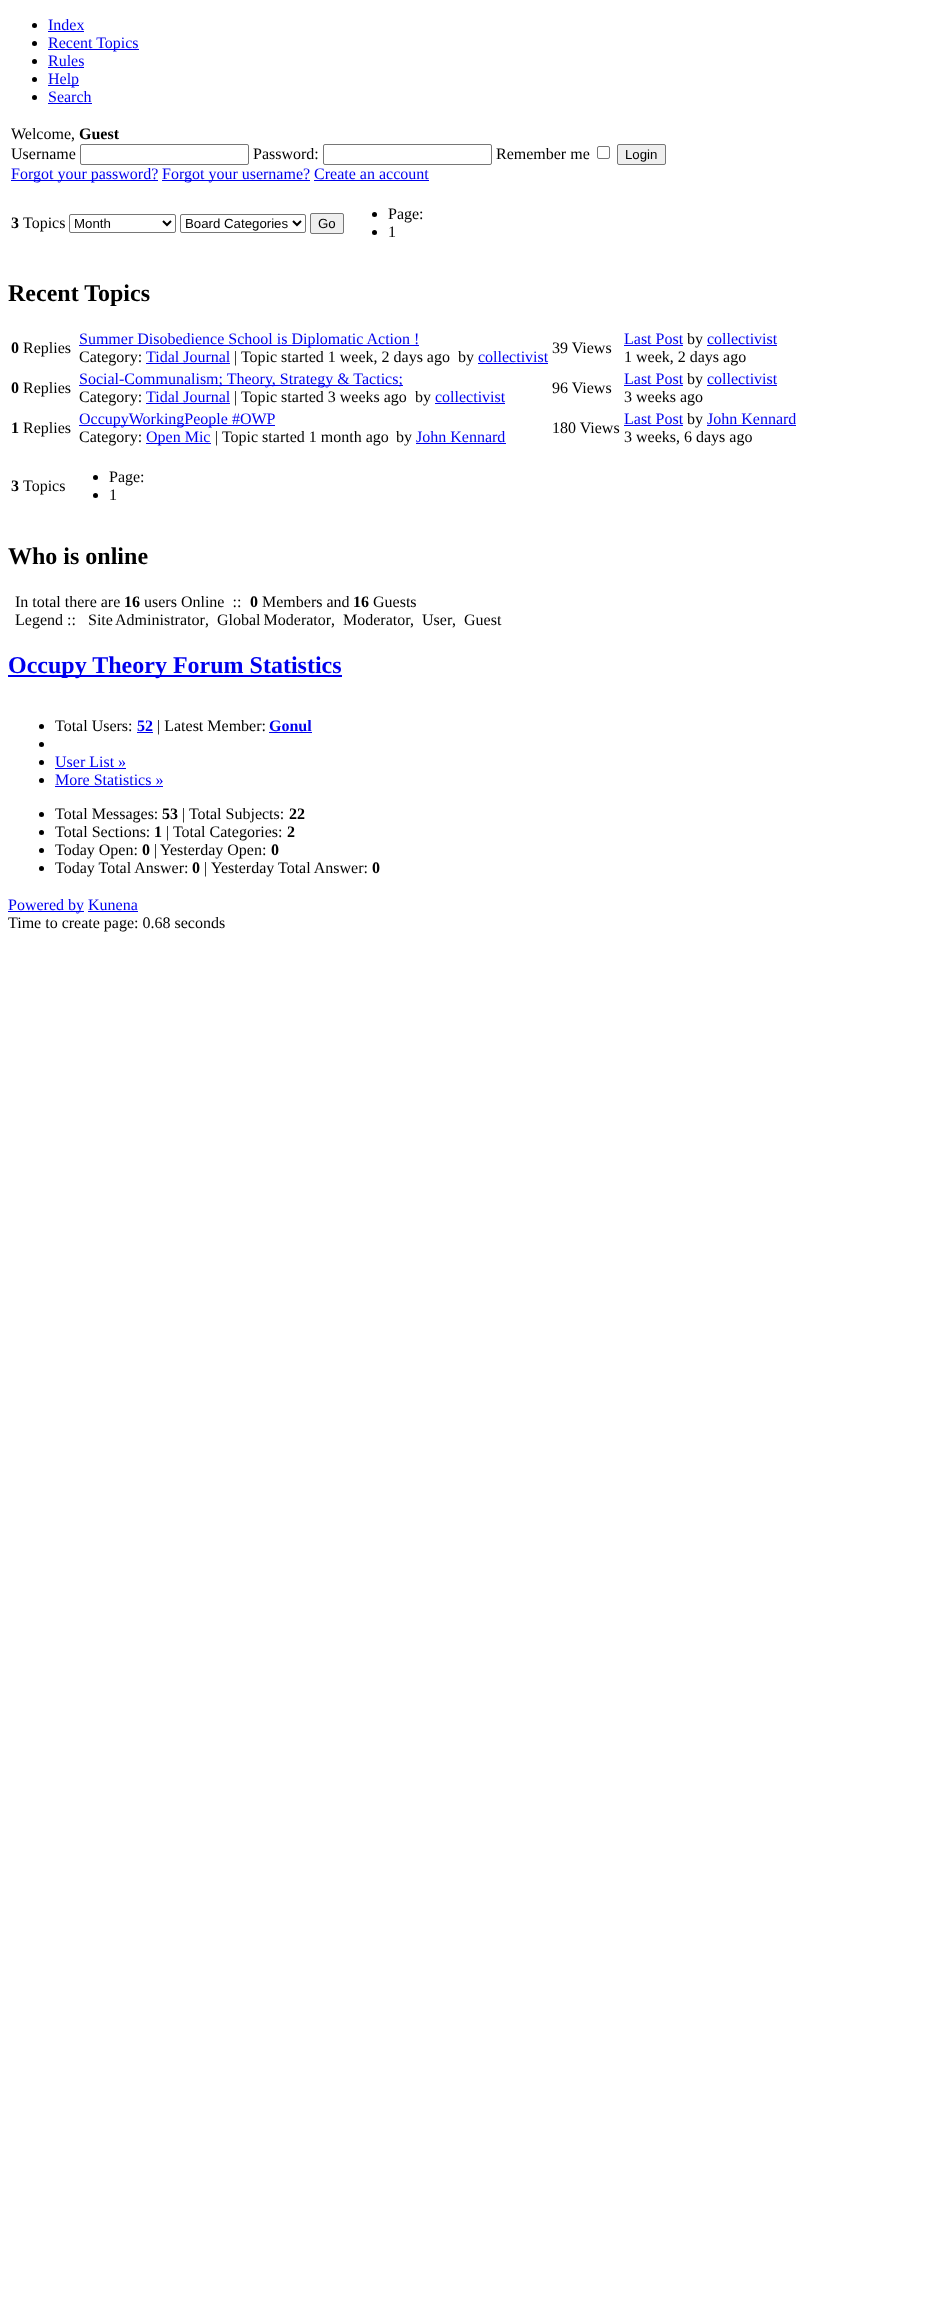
<!DOCTYPE html>
<meta charset="utf-8">
<style>body { margin: 0 } canvas { display: block }</style>
<canvas id="canvas" width="926" height="2317"></canvas>
<script type="module">
  const canvas = document.getElementById("canvas");
  const ctx = canvas.getContext("2d");
  ctx.miterLimit = 4;
  ctx.fontKerning = "normal";

  ctx.fillStyle = "#ffffff";
  ctx.fillRect(0, 0, 926, 2317);
  ctx.fillStyle = "#000000";
  ctx.beginPath();
  ctx.arc(34.5, 25.5, 2.5, 0, Math.PI * 2);
  ctx.fill();
  ctx.font = "16px Liberation Serif";
  ctx.fillStyle = "#0000ee";
  ctx.fillText("Index", 48, 30);
  ctx.fillRect(48, 31, 36, 1);
  ctx.fillStyle = "#000000";
  ctx.beginPath();
  ctx.arc(34.5, 43.5, 2.5, 0, Math.PI * 2);
  ctx.fill();
  ctx.fillStyle = "#0000ee";
  ctx.fillRect(48, 49, 91, 1);
  ctx.fillText("Recent Topics", 48, 48);
  ctx.fillStyle = "#000000";
  ctx.beginPath();
  ctx.arc(34.5, 61.5, 2.5, 0, Math.PI * 2);
  ctx.fill();
  ctx.fillStyle = "#0000ee";
  ctx.fillText("Rules", 48, 66);
  ctx.fillRect(48, 67, 36, 1);
  ctx.fillStyle = "#000000";
  ctx.beginPath();
  ctx.arc(34.5, 79.5, 2.5, 0, Math.PI * 2);
  ctx.fill();
  ctx.fillStyle = "#0000ee";
  ctx.fillRect(48, 85, 31, 1);
  ctx.fillText("Help", 48, 84);
  ctx.fillStyle = "#000000";
  ctx.beginPath();
  ctx.arc(34.5, 97.5, 2.5, 0, Math.PI * 2);
  ctx.fill();
  ctx.fillStyle = "#0000ee";
  ctx.fillText("Search", 48, 102);
  ctx.fillRect(48, 103, 44, 1);
  ctx.fillStyle = "#000000";
  ctx.fillText("Welcome,", 11, 139);
  ctx.font = "bold 16px Liberation Serif";
  ctx.fillText("Guest", 79, 139);
  ctx.font = "16px Liberation Serif";
  ctx.fillText("Username", 11, 159);
  ctx.beginPath();
  ctx.roundRect(80.5, 144.5, 168, 20, 1.5);
  ctx.strokeStyle = "#767676";
  ctx.stroke();
  ctx.fillText("Password:", 253, 159);
  ctx.beginPath();
  ctx.roundRect(323.5, 144.5, 168, 20, 1.5);
  ctx.stroke();
  ctx.fillText("Remember me", 496, 159);
  ctx.beginPath();
  ctx.roundRect(597.5, 146.5, 12, 12, 1.5);
  ctx.stroke();
  ctx.fillStyle = "#efefef";
  ctx.beginPath();
  ctx.roundRect(617.5, 144.5, 48, 20, 1.5);
  ctx.fill();
  ctx.stroke();
  ctx.font = "13.25px Liberation Sans";
  ctx.fillStyle = "#000000";
  ctx.fillText("Login", 625, 159);
  ctx.fillStyle = "#0000ee";
  ctx.fillRect(11, 180, 147, 1);
  ctx.font = "16px Liberation Serif";
  ctx.fillText("Forgot your password?", 11, 179);
  ctx.fillRect(162, 180, 148, 1);
  ctx.fillText("Forgot your username? Create an account", 162, 179);
  ctx.fillRect(314, 180, 115, 1);
  ctx.font = "bold 16px Liberation Serif";
  ctx.fillStyle = "#000000";
  ctx.fillText("3", 11, 228);
  ctx.font = "16px Liberation Serif";
  ctx.fillText("Topics", 23, 228);
  ctx.beginPath();
  ctx.roundRect(69.5, 214.5, 106, 18, 1.5);
  ctx.stroke();
  ctx.beginPath();
  ctx.moveTo(163, 221);
  ctx.lineTo(167, 225);
  ctx.lineTo(171, 221);
  ctx.strokeStyle = "#000000";
  ctx.lineWidth = 2;
  ctx.stroke();
  ctx.font = "13.25px Liberation Sans";
  ctx.fillText("Month", 74, 228);
  ctx.beginPath();
  ctx.roundRect(180.5, 214.5, 125, 18, 1.5);
  ctx.strokeStyle = "#767676";
  ctx.lineWidth = 1;
  ctx.stroke();
  ctx.beginPath();
  ctx.moveTo(293, 221);
  ctx.lineTo(297, 225);
  ctx.lineTo(301, 221);
  ctx.strokeStyle = "#000000";
  ctx.lineWidth = 2;
  ctx.stroke();
  ctx.fillText("Board Categories", 185, 228);
  ctx.fillStyle = "#efefef";
  ctx.beginPath();
  ctx.roundRect(310.5, 213.5, 33, 20, 1.5);
  ctx.fill();
  ctx.strokeStyle = "#767676";
  ctx.lineWidth = 1;
  ctx.stroke();
  ctx.fillStyle = "#000000";
  ctx.fillText("Go", 318, 228);
  ctx.beginPath();
  ctx.arc(374.5, 214.5, 2.5, 0, Math.PI * 2);
  ctx.fill();
  ctx.font = "16px Liberation Serif";
  ctx.fillText("Page:", 388, 219);
  ctx.beginPath();
  ctx.arc(374.5, 232.5, 2.5, 0, Math.PI * 2);
  ctx.fill();
  ctx.fillText("1", 388, 237);
  ctx.font = "bold 24px Liberation Serif";
  ctx.fillText("Recent Topics", 8, 301);
  ctx.font = "bold 16px Liberation Serif";
  ctx.fillText("0", 11, 353);
  ctx.font = "16px Liberation Serif";
  ctx.fillText("Replies", 23, 353);
  ctx.fillStyle = "#0000ee";
  ctx.fillRect(79, 345, 340, 1);
  ctx.fillText("Summer Disobedience School is Diplomatic Action !", 79, 344);
  ctx.fillStyle = "#000000";
  ctx.fillText("Category:", 79, 362);
  ctx.fillStyle = "#0000ee";
  ctx.fillText("Tidal Journal", 146, 362);
  ctx.fillRect(146, 363, 84, 1);
  ctx.fillStyle = "#000000";
  ctx.fillText("| Topic started 1 week, 2 days ago", 234, 362);
  ctx.fillText("by", 458, 362);
  ctx.fillStyle = "#0000ee";
  ctx.fillRect(478, 363, 70, 1);
  ctx.fillText("collectivist", 478, 362);
  ctx.fillStyle = "#000000";
  ctx.fillText("39 Views", 552, 353);
  ctx.fillStyle = "#0000ee";
  ctx.fillText("Last Post", 624, 344);
  ctx.fillRect(624, 345, 59, 1);
  ctx.fillStyle = "#000000";
  ctx.fillText("by", 687, 344);
  ctx.fillStyle = "#0000ee";
  ctx.fillText("collectivist", 707, 344);
  ctx.fillRect(707, 345, 70, 1);
  ctx.fillStyle = "#000000";
  ctx.fillText("1 week, 2 days ago", 624, 362);
  ctx.font = "bold 16px Liberation Serif";
  ctx.fillText("0", 11, 393);
  ctx.font = "16px Liberation Serif";
  ctx.fillText("Replies", 23, 393);
  ctx.fillStyle = "#0000ee";
  ctx.fillRect(79, 385, 324, 1);
  ctx.fillText("Social-Communalism; Theory, Strategy & Tactics;", 79, 384);
  ctx.fillStyle = "#000000";
  ctx.fillText("Category:", 79, 402);
  ctx.fillStyle = "#0000ee";
  ctx.fillText("Tidal Journal", 146, 402);
  ctx.fillRect(146, 403, 84, 1);
  ctx.fillStyle = "#000000";
  ctx.fillText("| Topic started 3 weeks ago", 234, 402);
  ctx.fillText("by", 415, 402);
  ctx.fillStyle = "#0000ee";
  ctx.fillText("collectivist", 435, 402);
  ctx.fillRect(435, 403, 70, 1);
  ctx.fillStyle = "#000000";
  ctx.fillText("96 Views", 552, 393);
  ctx.fillStyle = "#0000ee";
  ctx.fillText("Last Post", 624, 384);
  ctx.fillRect(624, 385, 59, 1);
  ctx.fillStyle = "#000000";
  ctx.fillText("by", 687, 384);
  ctx.fillStyle = "#0000ee";
  ctx.fillText("collectivist", 707, 384);
  ctx.fillRect(707, 385, 70, 1);
  ctx.fillStyle = "#000000";
  ctx.fillText("3 weeks ago", 624, 402);
  ctx.font = "bold 16px Liberation Serif";
  ctx.fillText("1", 11, 433);
  ctx.font = "16px Liberation Serif";
  ctx.fillText("Replies", 23, 433);
  ctx.fillStyle = "#0000ee";
  ctx.fillRect(79, 425, 196, 1);
  ctx.fillText("OccupyWorkingPeople #OWP", 79, 424);
  ctx.fillStyle = "#000000";
  ctx.fillText("Category:", 79, 442);
  ctx.fillStyle = "#0000ee";
  ctx.fillRect(146, 443, 65, 1);
  ctx.fillText("Open Mic", 146, 442);
  ctx.fillStyle = "#000000";
  ctx.fillText("| Topic started 1 month ago", 215, 442);
  ctx.fillText("by", 396, 442);
  ctx.fillStyle = "#0000ee";
  ctx.fillRect(416, 443, 90, 1);
  ctx.fillText("John Kennard", 416, 442);
  ctx.fillStyle = "#000000";
  ctx.fillText("180 Views", 552, 433);
  ctx.fillStyle = "#0000ee";
  ctx.fillText("Last Post", 624, 424);
  ctx.fillRect(624, 425, 59, 1);
  ctx.fillStyle = "#000000";
  ctx.fillText("by", 687, 424);
  ctx.fillStyle = "#0000ee";
  ctx.fillText("John Kennard", 707, 424);
  ctx.fillRect(707, 425, 89, 1);
  ctx.fillStyle = "#000000";
  ctx.fillText("3 weeks, 6 days ago", 624, 442);
  ctx.font = "bold 16px Liberation Serif";
  ctx.fillText("3", 11, 491);
  ctx.font = "16px Liberation Serif";
  ctx.fillText("Topics", 23, 491);
  ctx.beginPath();
  ctx.arc(95.5, 477.5, 2.5, 0, Math.PI * 2);
  ctx.fill();
  ctx.fillText("Page:", 109, 482);
  ctx.beginPath();
  ctx.arc(95.5, 495.5, 2.5, 0, Math.PI * 2);
  ctx.fill();
  ctx.fillText("1", 109, 500);
  ctx.font = "bold 24px Liberation Serif";
  ctx.fillText("Who is online", 8, 564);
  ctx.font = "16px Liberation Serif";
  ctx.fillText("In total there are", 15, 607);
  ctx.font = "bold 16px Liberation Serif";
  ctx.fillText("16", 124, 607);
  ctx.font = "16px Liberation Serif";
  ctx.fillText("users Online  ::", 144, 607);
  ctx.font = "bold 16px Liberation Serif";
  ctx.fillText("0", 250, 607);
  ctx.font = "16px Liberation Serif";
  ctx.fillText("Members and", 262, 607);
  ctx.font = "bold 16px Liberation Serif";
  ctx.fillText("16", 353, 607);
  ctx.font = "16px Liberation Serif";
  ctx.fillText("Guests", 373, 607);
  ctx.fillText("Legend ::", 15, 625);
  ctx.wordSpacing = "-1px";
  ctx.fillText("Site Administrator", 88, 625);
  ctx.wordSpacing = "0px";
  ctx.fillText(",", 205, 625);
  ctx.wordSpacing = "-1px";
  ctx.fillText("Global Moderator", 217, 625);
  ctx.wordSpacing = "0px";
  ctx.fillText(",", 331, 625);
  ctx.fillText("Moderator", 343, 625);
  ctx.fillText(",", 410, 625);
  ctx.fillText("User", 422, 625);
  ctx.fillText(",", 452, 625);
  ctx.fillText("Guest", 464, 625);
  ctx.fillStyle = "#0000ee";
  ctx.fillRect(8, 675, 334, 2);
  ctx.font = "bold 24px Liberation Serif";
  ctx.fillText("Occupy Theory Forum Statistics", 8, 673);
  ctx.fillStyle = "#000000";
  ctx.beginPath();
  ctx.arc(41.5, 726.5, 2.5, 0, Math.PI * 2);
  ctx.fill();
  ctx.font = "16px Liberation Serif";
  ctx.fillText("Total Users:", 55, 731);
  ctx.font = "bold 16px Liberation Serif";
  ctx.fillStyle = "#0000ee";
  ctx.fillText("52", 137, 731);
  ctx.fillRect(137, 732, 16, 1);
  ctx.font = "16px Liberation Serif";
  ctx.fillStyle = "#000000";
  ctx.fillText("| Latest Member:", 157, 731);
  ctx.font = "bold 16px Liberation Serif";
  ctx.fillStyle = "#0000ee";
  ctx.fillText("Gonul", 269, 731);
  ctx.fillRect(269, 732, 43, 1);
  ctx.fillStyle = "#000000";
  ctx.beginPath();
  ctx.arc(41.5, 744.5, 2.5, 0, Math.PI * 2);
  ctx.fill();
  ctx.beginPath();
  ctx.arc(41.5, 762.5, 2.5, 0, Math.PI * 2);
  ctx.fill();
  ctx.font = "16px Liberation Serif";
  ctx.fillStyle = "#0000ee";
  ctx.fillText("User List »", 55, 767);
  ctx.fillRect(55, 768, 71, 1);
  ctx.fillStyle = "#000000";
  ctx.beginPath();
  ctx.arc(41.5, 780.5, 2.5, 0, Math.PI * 2);
  ctx.fill();
  ctx.fillStyle = "#0000ee";
  ctx.fillText("More Statistics »", 55, 785);
  ctx.fillRect(55, 786, 108, 1);
  ctx.fillStyle = "#000000";
  ctx.beginPath();
  ctx.arc(41.5, 814.5, 2.5, 0, Math.PI * 2);
  ctx.fill();
  ctx.fillText("Total Messages:", 55, 819);
  ctx.font = "bold 16px Liberation Serif";
  ctx.fillText("53", 162, 819);
  ctx.font = "16px Liberation Serif";
  ctx.fillText("| Total Subjects:", 182, 819);
  ctx.font = "bold 16px Liberation Serif";
  ctx.fillText("22", 289, 819);
  ctx.beginPath();
  ctx.arc(41.5, 832.5, 2.5, 0, Math.PI * 2);
  ctx.fill();
  ctx.font = "16px Liberation Serif";
  ctx.fillText("Total Sections:", 55, 837);
  ctx.font = "bold 16px Liberation Serif";
  ctx.fillText("1", 154, 837);
  ctx.font = "16px Liberation Serif";
  ctx.fillText("| Total Categories:", 166, 837);
  ctx.font = "bold 16px Liberation Serif";
  ctx.fillText("2", 287, 837);
  ctx.beginPath();
  ctx.arc(41.5, 850.5, 2.5, 0, Math.PI * 2);
  ctx.fill();
  ctx.font = "16px Liberation Serif";
  ctx.fillText("Today Open:", 55, 855);
  ctx.font = "bold 16px Liberation Serif";
  ctx.fillText("0", 142, 855);
  ctx.font = "16px Liberation Serif";
  ctx.fillText("|", 154, 855);
  ctx.fillText("Yesterday Open:", 160, 855);
  ctx.font = "bold 16px Liberation Serif";
  ctx.fillText("0", 271, 855);
  ctx.beginPath();
  ctx.arc(41.5, 868.5, 2.5, 0, Math.PI * 2);
  ctx.fill();
  ctx.font = "16px Liberation Serif";
  ctx.fillText("Today Total Answer:", 55, 873);
  ctx.font = "bold 16px Liberation Serif";
  ctx.fillText("0", 192, 873);
  ctx.font = "16px Liberation Serif";
  ctx.fillText("|", 204, 873);
  ctx.fillText("Yesterday Total Answer:", 211, 873);
  ctx.font = "bold 16px Liberation Serif";
  ctx.fillText("0", 372, 873);
  ctx.fillStyle = "#0000ee";
  ctx.fillRect(8, 911, 76, 1);
  ctx.font = "16px Liberation Serif";
  ctx.fillText("Powered by Kunena", 8, 910);
  ctx.fillRect(88, 911, 50, 1);
  ctx.fillStyle = "#000000";
  ctx.fillText("Time to create page: 0.68 seconds", 8, 928);
</script>
